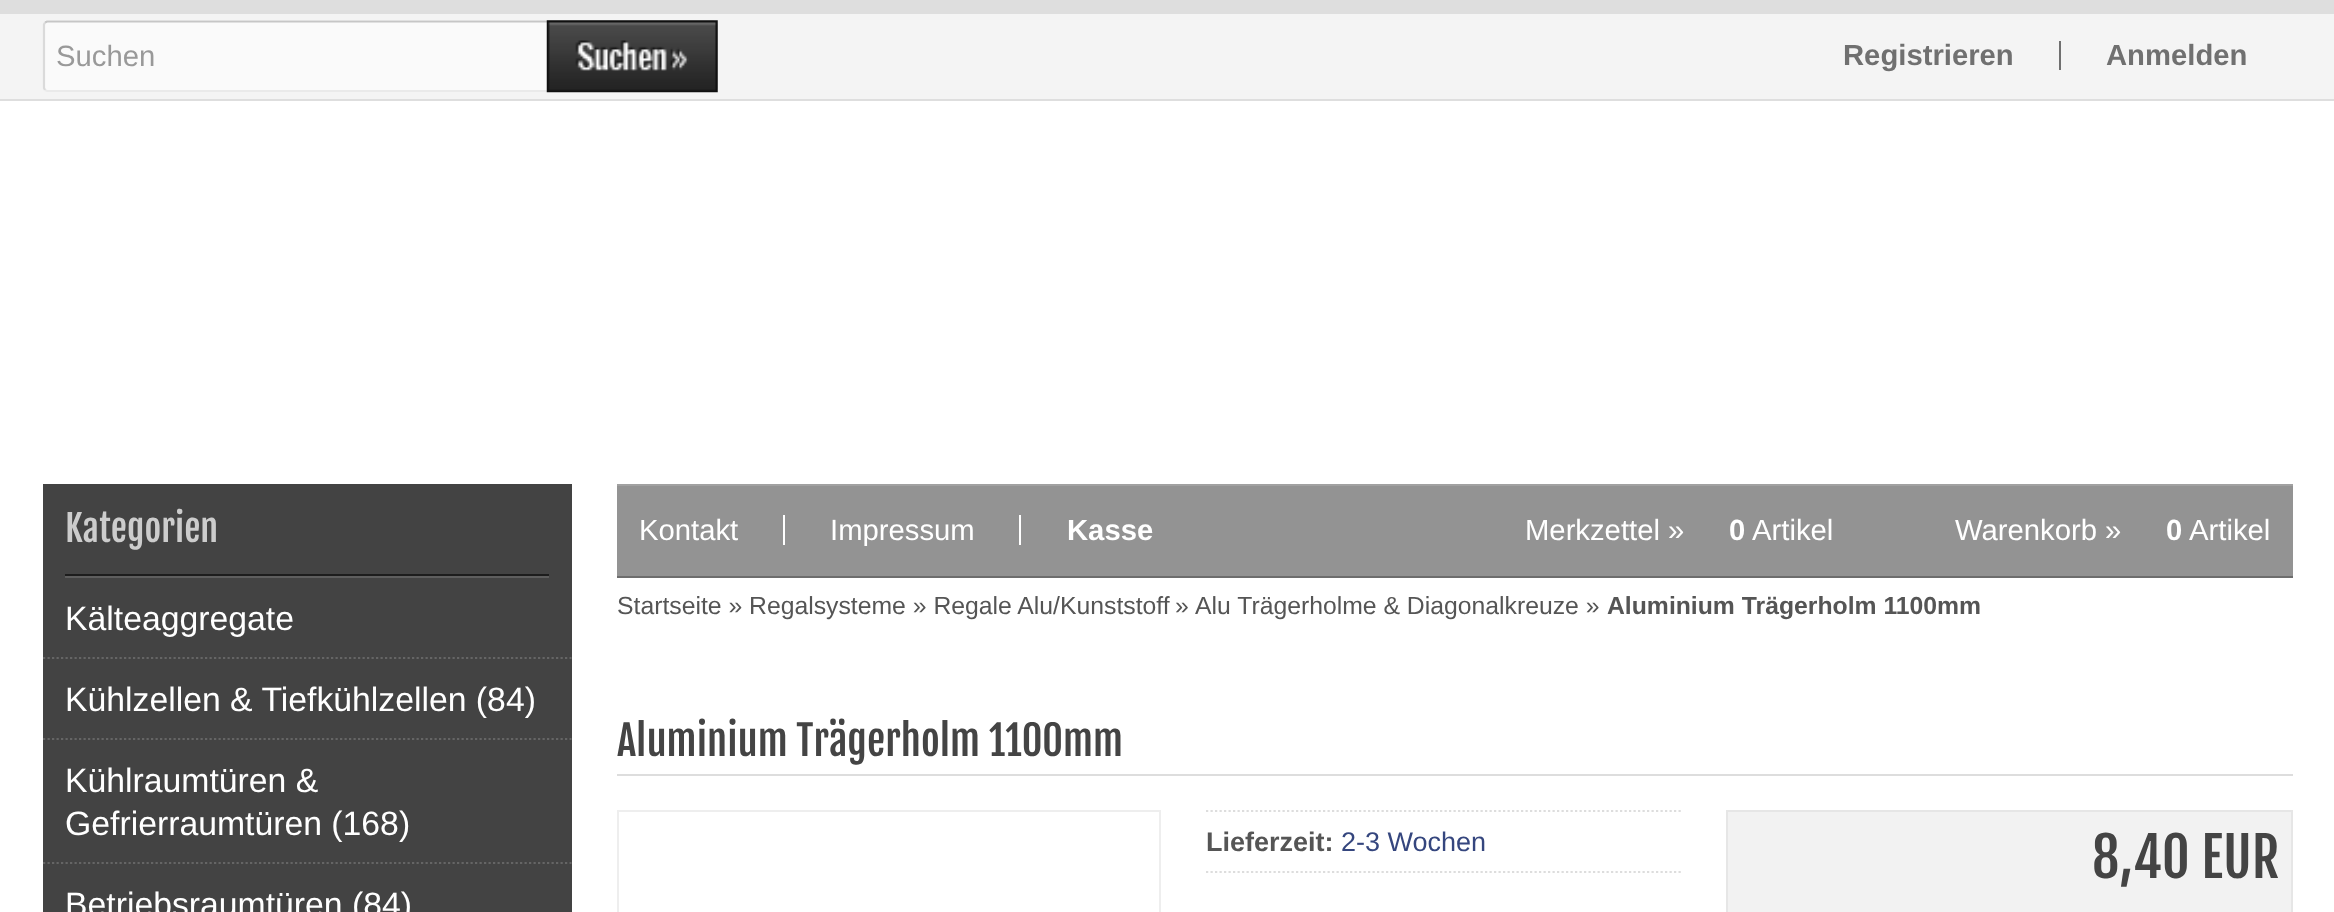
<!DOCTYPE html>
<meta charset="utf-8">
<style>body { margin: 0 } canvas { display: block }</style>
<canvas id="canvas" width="2334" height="912"></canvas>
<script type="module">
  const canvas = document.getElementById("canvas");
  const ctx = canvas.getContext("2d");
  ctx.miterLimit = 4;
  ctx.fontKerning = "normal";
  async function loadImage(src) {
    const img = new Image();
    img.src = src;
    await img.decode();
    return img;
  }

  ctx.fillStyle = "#ffffff";
  ctx.fillRect(0, 0, 2334, 912);
  ctx.fillStyle = "#f4f4f4";
  ctx.fillRect(0, 14, 2334, 85);
  ctx.fillStyle = "#dedede";
  ctx.fillRect(0, 0, 2334, 14);
  ctx.fillRect(0, 99, 2334, 2);
  ctx.fillStyle = "#fafafa";
  ctx.beginPath();
  ctx.roundRect(43, 20, 675, 72, 5);
  ctx.fill();
  ctx.beginPath();
  ctx.moveTo(45, 22.5);
  ctx.lineTo(47, 21.5);
  ctx.lineTo(713, 21.5);
  ctx.lineTo(715.5, 22.5);
  ctx.strokeStyle = "#c6c6c6";
  ctx.lineWidth = 2.2;
  ctx.stroke();
  ctx.beginPath();
  ctx.moveTo(715.5, 22.5);
  ctx.lineTo(716.5, 24.5);
  ctx.lineTo(716.5, 88);
  ctx.lineTo(715.5, 90);
  ctx.strokeStyle = "#dadada";
  ctx.stroke();
  ctx.beginPath();
  ctx.moveTo(715.5, 90);
  ctx.lineTo(713, 91);
  ctx.lineTo(47, 91);
  ctx.lineTo(45, 90);
  ctx.strokeStyle = "#eaeaea";
  ctx.stroke();
  ctx.beginPath();
  ctx.moveTo(45, 90);
  ctx.lineTo(44, 88);
  ctx.lineTo(44, 24.5);
  ctx.lineTo(45, 22.5);
  ctx.strokeStyle = "#dadada";
  ctx.stroke();
  ctx.font = "29.25px Arimo";
  ctx.fillStyle = "#999999";
  ctx.fillText("Suchen", 56, 66);
  ctx.drawImage(await loadImage("img1.png"), 546, 20, 172, 73);
  ctx.font = "bold 29.25px Arimo";
  ctx.fillStyle = "#707070";
  ctx.fillText("Registrieren", 1843, 65);
  ctx.fillRect(2059, 41, 2, 29);
  ctx.fillText("Anmelden", 2106, 65);
  ctx.fillStyle = "#434343";
  ctx.fillRect(43, 484, 529, 175);
  ctx.font = "36px Fjalla One";
  ctx.fillStyle = "#cccccc";
  ctx.fillText("Kategorien", 65, 542);
  ctx.fillStyle = "#5e5e5e";
  ctx.fillRect(65, 576, 484, 2);
  ctx.fillStyle = "#1d1d1d";
  ctx.fillRect(65, 574, 484, 2);
  ctx.beginPath();
  ctx.moveTo(43, 658);
  ctx.lineTo(571.5, 658);
  ctx.strokeStyle = "#656565";
  ctx.setLineDash([2.25, 2.25]);
  ctx.stroke();
  ctx.font = "33.75px Arimo";
  ctx.fillStyle = "#ffffff";
  ctx.fillText("Kälteaggregate", 65, 630);
  ctx.fillStyle = "#434343";
  ctx.fillRect(43, 659, 529, 81);
  ctx.beginPath();
  ctx.moveTo(43, 739);
  ctx.lineTo(571.5, 739);
  ctx.stroke();
  ctx.fillStyle = "#ffffff";
  ctx.fillText("Kühlzellen & Tiefkühlzellen (84)", 65, 711);
  ctx.fillStyle = "#434343";
  ctx.fillRect(43, 740, 529, 124);
  ctx.beginPath();
  ctx.moveTo(43, 863);
  ctx.lineTo(571.5, 863);
  ctx.stroke();
  ctx.fillStyle = "#ffffff";
  ctx.fillText("Kühlraumtüren &", 65, 792);
  ctx.fillText("Gefrierraumtüren (168)", 65, 835);
  ctx.fillStyle = "#434343";
  ctx.fillRect(43, 864, 529, 48);
  ctx.fillStyle = "#ffffff";
  ctx.fillText("Betriebsraumtüren (84)", 65, 916);
  ctx.fillStyle = "#939393";
  ctx.fillRect(617, 486, 1676, 90);
  ctx.fillStyle = "#a1a1a1";
  ctx.fillRect(617, 484, 1676, 2);
  ctx.fillStyle = "#6d6d6d";
  ctx.fillRect(617, 576, 1676, 2);
  ctx.fillStyle = "#ffffff";
  ctx.fillRect(783, 515, 2, 30);
  ctx.font = "29.25px Arimo";
  ctx.fillText("Kontakt", 639, 540);
  ctx.fillRect(1019, 515, 2, 30);
  ctx.fillText("Impressum", 830, 540);
  ctx.font = "bold 29.25px Arimo";
  ctx.fillText("Kasse", 1067, 540);
  ctx.font = "29.25px Arimo";
  ctx.fillText("Merkzettel »", 1525, 540);
  ctx.font = "bold 29.25px Arimo";
  ctx.fillText("0", 1729, 540);
  ctx.font = "29.25px Arimo";
  ctx.fillText("Artikel", 1752, 540);
  ctx.fillText("Warenkorb »", 1955, 540);
  ctx.font = "bold 29.25px Arimo";
  ctx.fillText("0", 2166, 540);
  ctx.font = "29.25px Arimo";
  ctx.fillText("Artikel", 2189, 540);
  ctx.font = "24.75px Arimo";
  ctx.fillStyle = "#555555";
  ctx.fillText("Startseite » Regalsysteme » Regale Alu/Kunststoff", 617, 614);
  ctx.fillText("»", 1175, 614);
  ctx.fillText("Alu Trägerholme & Diagonalkreuze »", 1195, 614);
  ctx.font = "bold 24.75px Arimo";
  ctx.fillText("Aluminium Trägerholm 1100mm", 1607, 614);
  ctx.fillStyle = "#dddddd";
  ctx.fillRect(617, 774, 1676, 2);
  ctx.font = "40.5px Fjalla One";
  ctx.fillStyle = "#444444";
  ctx.fillText("Aluminium Trägerholm 1100mm", 617, 756);
  ctx.strokeStyle = "#eeeeee";
  ctx.lineWidth = 2;
  ctx.setLineDash([]);
  ctx.strokeRect(618, 811, 542, 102);
  ctx.beginPath();
  ctx.moveTo(1206, 811);
  ctx.lineTo(1681, 811);
  ctx.strokeStyle = "#dddddd";
  ctx.lineWidth = 2.2;
  ctx.setLineDash([2.25, 2.25]);
  ctx.stroke();
  ctx.beginPath();
  ctx.moveTo(1206, 872);
  ctx.lineTo(1681, 872);
  ctx.stroke();
  ctx.font = "bold 27px Arimo";
  ctx.fillStyle = "#555555";
  ctx.fillText("Lieferzeit:", 1206, 851);
  ctx.font = "27px Arimo";
  ctx.fillStyle = "#35467e";
  ctx.fillText("2-3 Wochen", 1341, 851);
  ctx.fillStyle = "#f2f2f2";
  ctx.beginPath();
  ctx.rect(1727, 811, 565, 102);
  ctx.fill();
  ctx.strokeStyle = "#e6e6e6";
  ctx.lineWidth = 2;
  ctx.setLineDash([]);
  ctx.stroke();
  ctx.font = "54px Fjalla One";
  ctx.fillStyle = "#444444";
  ctx.fillText("8,40 EUR", 2092, 878);
</script>
